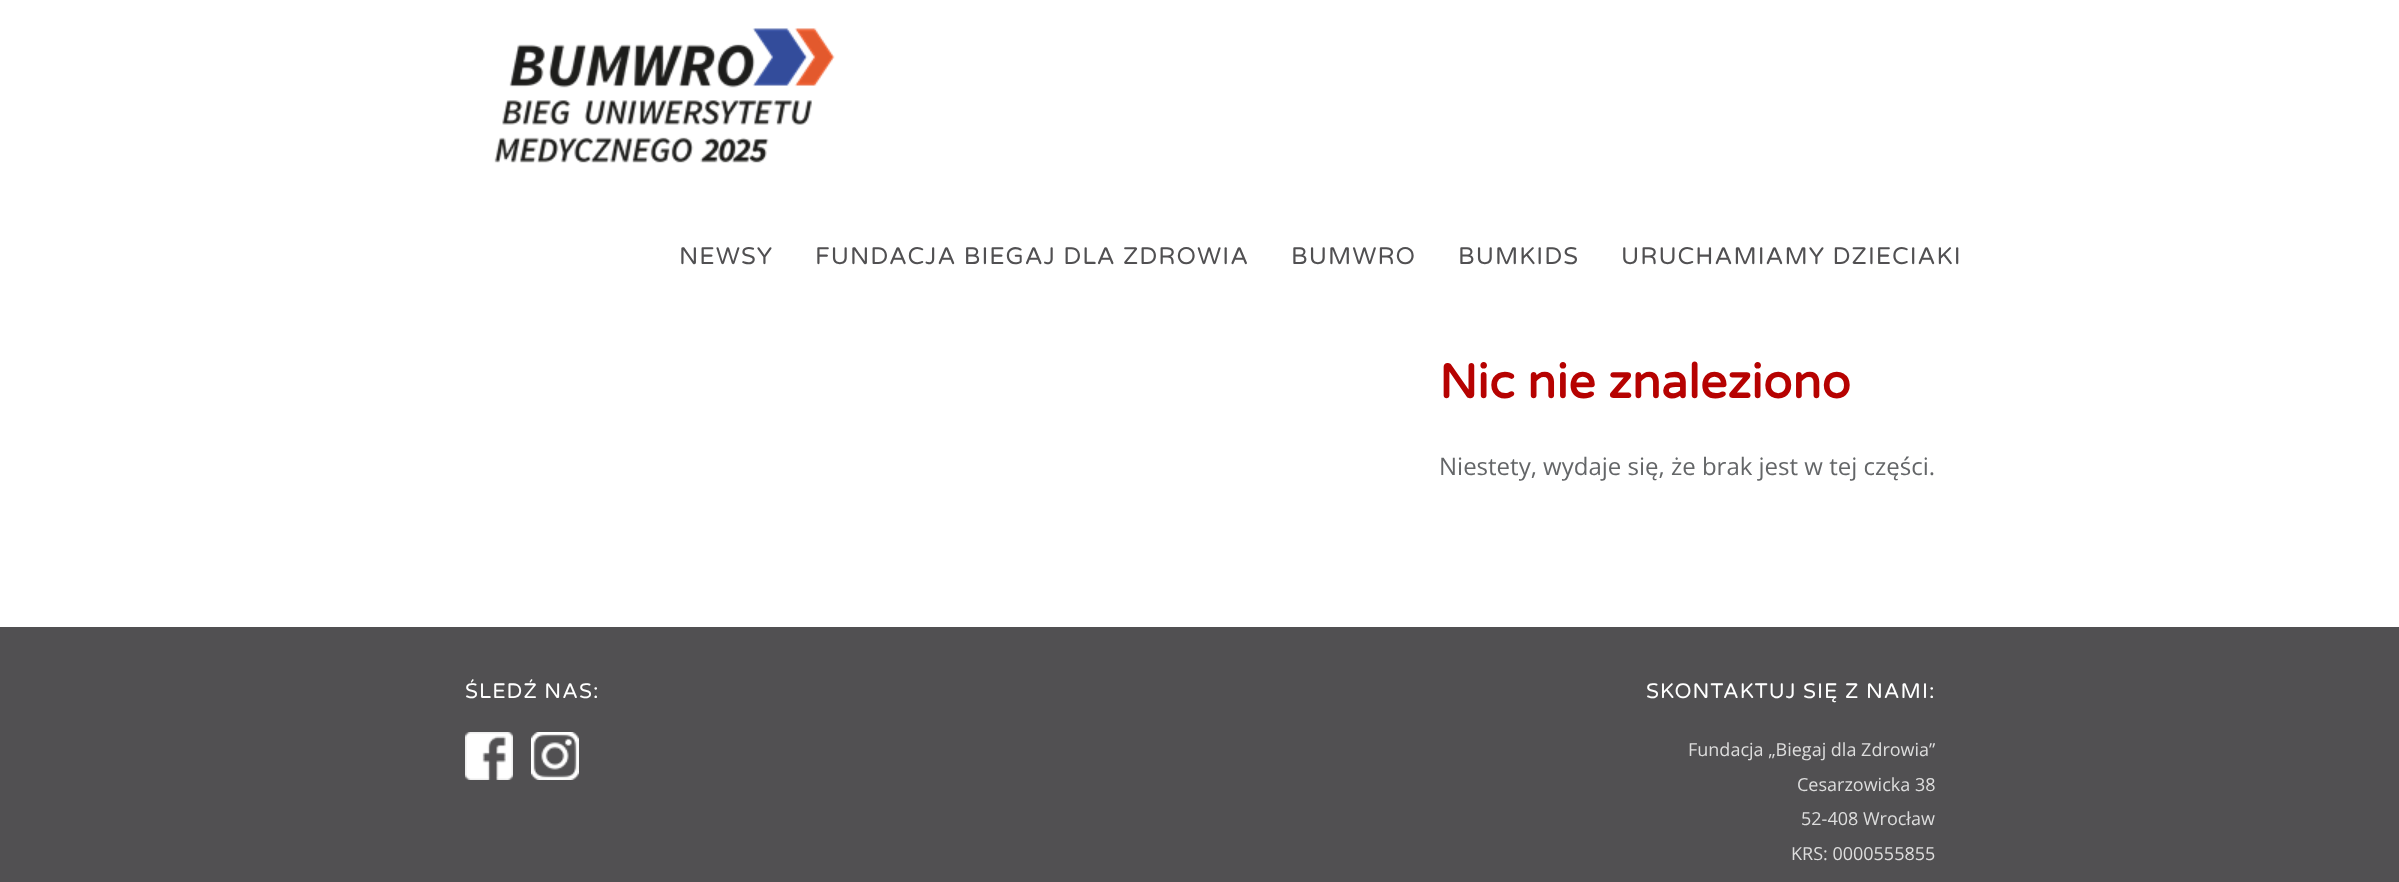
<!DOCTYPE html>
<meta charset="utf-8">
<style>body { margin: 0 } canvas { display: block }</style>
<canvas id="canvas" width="2399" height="882"></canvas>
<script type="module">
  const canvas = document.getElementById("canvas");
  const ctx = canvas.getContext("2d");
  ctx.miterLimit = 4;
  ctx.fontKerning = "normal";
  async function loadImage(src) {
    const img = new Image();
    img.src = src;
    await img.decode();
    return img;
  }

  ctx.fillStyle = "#ffffff";
  ctx.fillRect(0, 0, 2399, 882);
  ctx.drawImage(await loadImage("img1.png"), 494, 28, 341, 135);
  ctx.letterSpacing = "1.05px";
  ctx.font = "24px Varela Round";
  ctx.fillStyle = "#515052";
  ctx.fillText("NEWSY", 679, 264);
  ctx.fillText("FUNDACJA BIEGAJ DLA ZDROWIA", 815, 264);
  ctx.fillText("BUMWRO", 1291, 264);
  ctx.fillText("BUMKIDS", 1458, 264);
  ctx.fillText("URUCHAMIAMY DZIECIAKI", 1621, 264);
  ctx.letterSpacing = "0px";
  ctx.font = "bold 48px Varela Round";
  ctx.fillStyle = "#b60201";
  ctx.fillText("Nic nie znaleziono", 1439, 398);
  ctx.font = "24px Open Sans";
  ctx.fillStyle = "#646668";
  ctx.fillText("Niestety, wydaje się, że brak jest w tej części.", 1439, 475);
  ctx.fillStyle = "#515052";
  ctx.fillRect(0, 627, 2399, 255);
  ctx.letterSpacing = "1.05px";
  ctx.font = "21px Varela Round";
  ctx.fillStyle = "#ffffff";
  ctx.fillText("ŚLEDŹ NAS:", 465, 698);
  ctx.drawImage(await loadImage("img2.png"), 465, 732, 48, 48);
  ctx.drawImage(await loadImage("img3.png"), 531, 732, 48, 48);
  ctx.fillText("SKONTAKTUJ SIĘ Z NAMI:", 1646, 698);
  ctx.letterSpacing = "0px";
  ctx.font = "18px Open Sans";
  ctx.fillStyle = "#dddddd";
  ctx.fillText("Fundacja „Biegaj dla Zdrowia”", 1688, 756);
  ctx.fillText("Cesarzowicka 38", 1797, 791);
  ctx.fillText("52-408 Wrocław", 1801, 825);
  ctx.fillText("KRS: 0000555855", 1791, 860);
</script>
